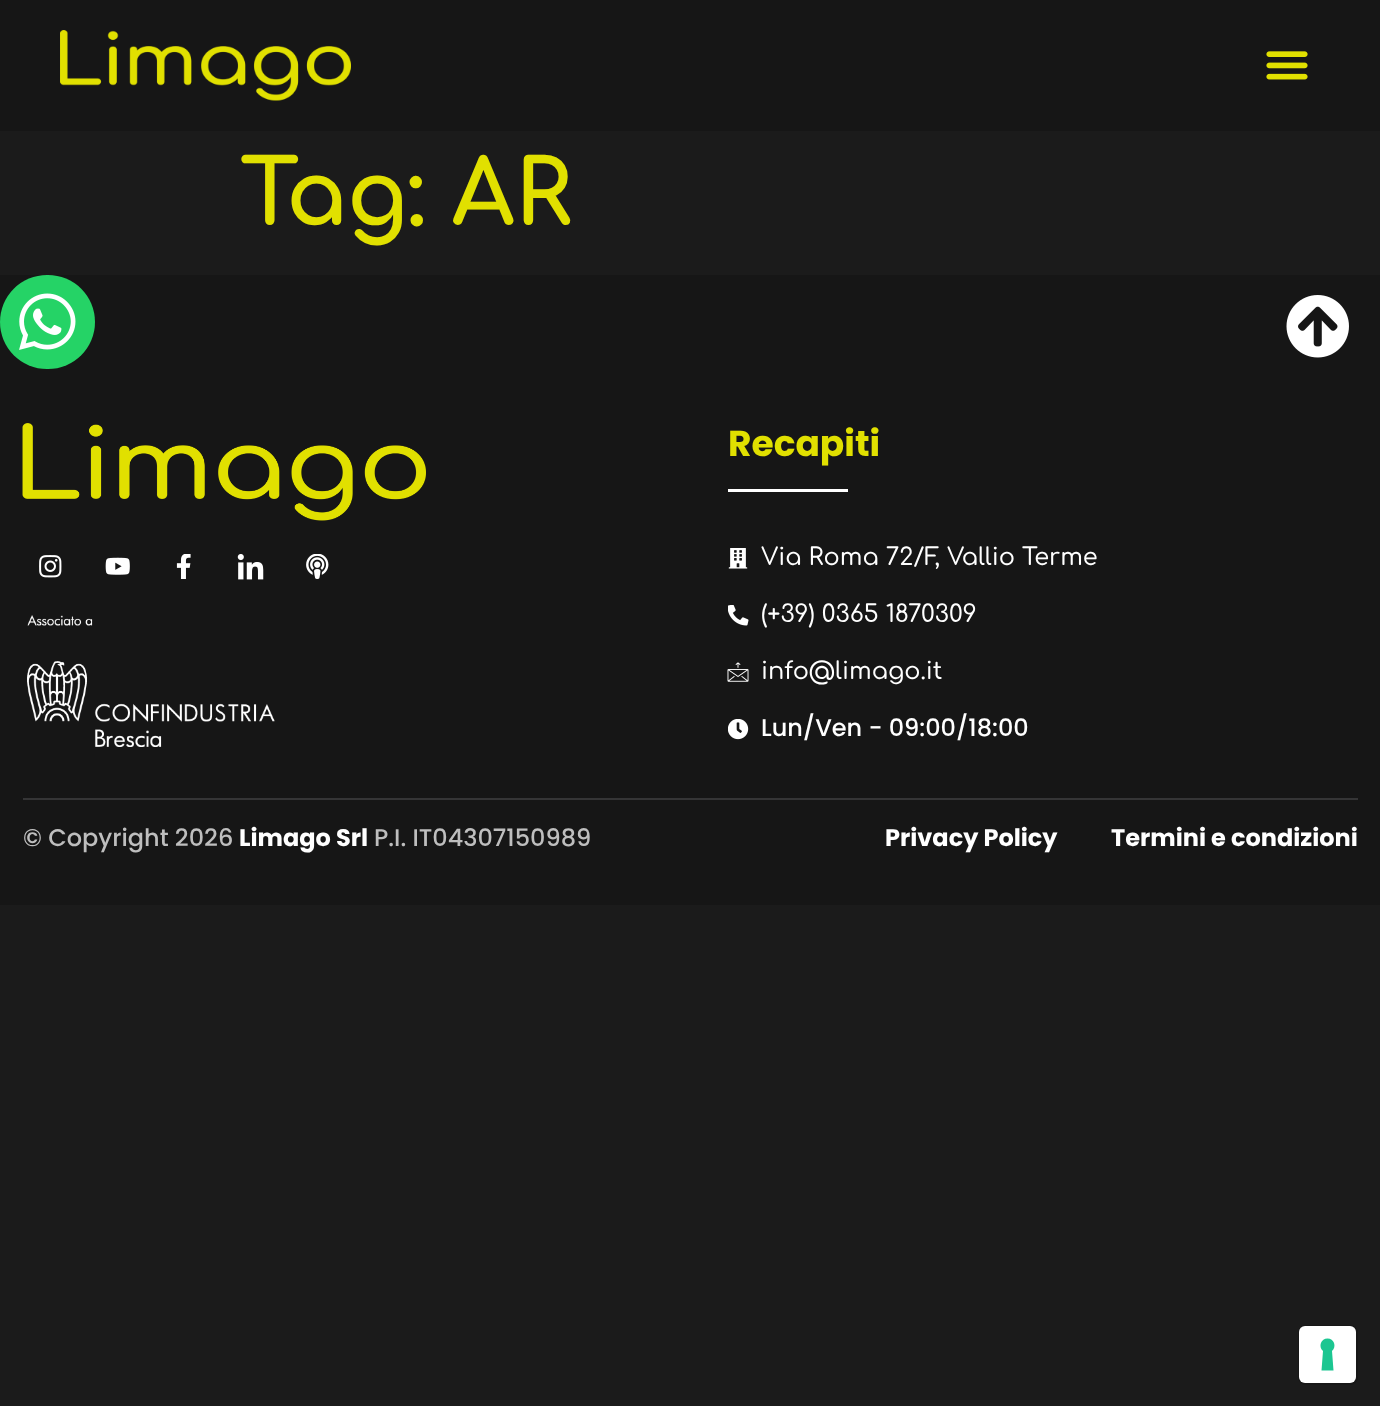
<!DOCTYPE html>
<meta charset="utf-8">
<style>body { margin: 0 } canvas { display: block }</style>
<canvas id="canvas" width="1380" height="1406"></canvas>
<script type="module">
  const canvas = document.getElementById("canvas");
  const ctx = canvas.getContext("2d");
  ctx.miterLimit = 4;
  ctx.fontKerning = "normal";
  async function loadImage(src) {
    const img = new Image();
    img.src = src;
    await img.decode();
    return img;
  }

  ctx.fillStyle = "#1b1b1b";
  ctx.fillRect(0, 0, 1380, 1406);
  ctx.fillStyle = "#161616";
  ctx.fillRect(0, 0, 1380, 131);
  ctx.drawImage(await loadImage("img1.png"), 60, 30, 291, 71);
  ctx.drawImage(await loadImage("img2.png"), 1266, 51, 42, 29);
  ctx.font = "bold 90px Comfortaa";
  ctx.fillStyle = "#e1e000";
  ctx.fillText("Tag: AR", 240, 225);
  ctx.fillStyle = "#161616";
  ctx.fillRect(0, 275, 1380, 630);
  ctx.fillStyle = "#25d366";
  ctx.beginPath();
  ctx.roundRect(0, 275, 95, 94, 47);
  ctx.fill();
  ctx.drawImage(await loadImage("img3.png"), 19, 293, 57, 57);
  ctx.drawImage(await loadImage("img4.png"), 1286, 295, 63, 63);
  ctx.drawImage(await loadImage("img5.png"), 22, 423, 404, 98);
  ctx.drawImage(await loadImage("img6.png"), 39, 555, 23, 23);
  ctx.drawImage(await loadImage("img7.png"), 105, 557, 25, 18);
  ctx.drawImage(await loadImage("img8.png"), 176, 554, 15, 25);
  ctx.drawImage(await loadImage("img9.png"), 237, 554, 27, 26);
  ctx.drawImage(await loadImage("img10.png"), 306, 554, 23, 25);
  ctx.drawImage(await loadImage("img11.png"), 27, 615, 248, 132);
  ctx.font = "bold 36px Poppins";
  ctx.fillStyle = "#e1e000";
  ctx.fillText("Recapiti", 728, 456);
  ctx.fillStyle = "#ffffff";
  ctx.fillRect(728, 489, 120, 3);
  ctx.drawImage(await loadImage("img12.png"), 728, 548, 20, 21);
  ctx.font = "500 24px Comfortaa";
  ctx.fillText("Via Roma 72/F, Vallio Terme", 761, 565);
  ctx.drawImage(await loadImage("img13.png"), 728, 605, 21, 21);
  ctx.fillText("(+39) 0365 1870309", 761, 622);
  ctx.drawImage(await loadImage("img14.png"), 727, 662, 22, 20);
  ctx.fillText("info@limago.it", 761, 679);
  ctx.drawImage(await loadImage("img15.png"), 728, 719, 21, 21);
  ctx.font = "500 24px Poppins";
  ctx.fillText("Lun/Ven - 09:00/18:00", 761, 736);
  ctx.fillStyle = "#353536";
  ctx.fillRect(23, 798, 1335, 2);
  ctx.fillStyle = "#bebebe";
  ctx.fillText("© Copyright 2026", 23, 846);
  ctx.font = "bold 24px Poppins";
  ctx.fillStyle = "#ffffff";
  ctx.fillText("Limago Srl", 239, 846);
  ctx.font = "500 24px Poppins";
  ctx.fillStyle = "#bebebe";
  ctx.fillText("P.I. IT04307150989", 374, 846);
  ctx.font = "bold 24px Poppins";
  ctx.fillStyle = "#ffffff";
  ctx.fillText("Privacy Policy", 885, 846);
  ctx.fillText("Termini e condizioni", 1111, 846);
  ctx.beginPath();
  ctx.roundRect(1299, 1326, 58, 58, 7);
  ctx.strokeStyle = "#171717";
  ctx.lineWidth = 2;
  ctx.stroke();
  ctx.beginPath();
  ctx.roundRect(1299, 1326, 57, 57, 6);
  ctx.fill();
  ctx.fillStyle = "#1cc691";
  ctx.beginPath();
  ctx.moveTo(1327.5, 1338.5);
  ctx.bezierCurveTo(1334, 1338.5, 1337, 1346.5, 1332, 1351);
  ctx.lineTo(1333.5, 1370.5);
  ctx.lineTo(1321.5, 1370.5);
  ctx.lineTo(1323, 1351);
  ctx.bezierCurveTo(1318, 1346.5, 1321, 1338.5, 1327.5, 1338.5);
  ctx.closePath();
  ctx.fill("evenodd");
</script>
